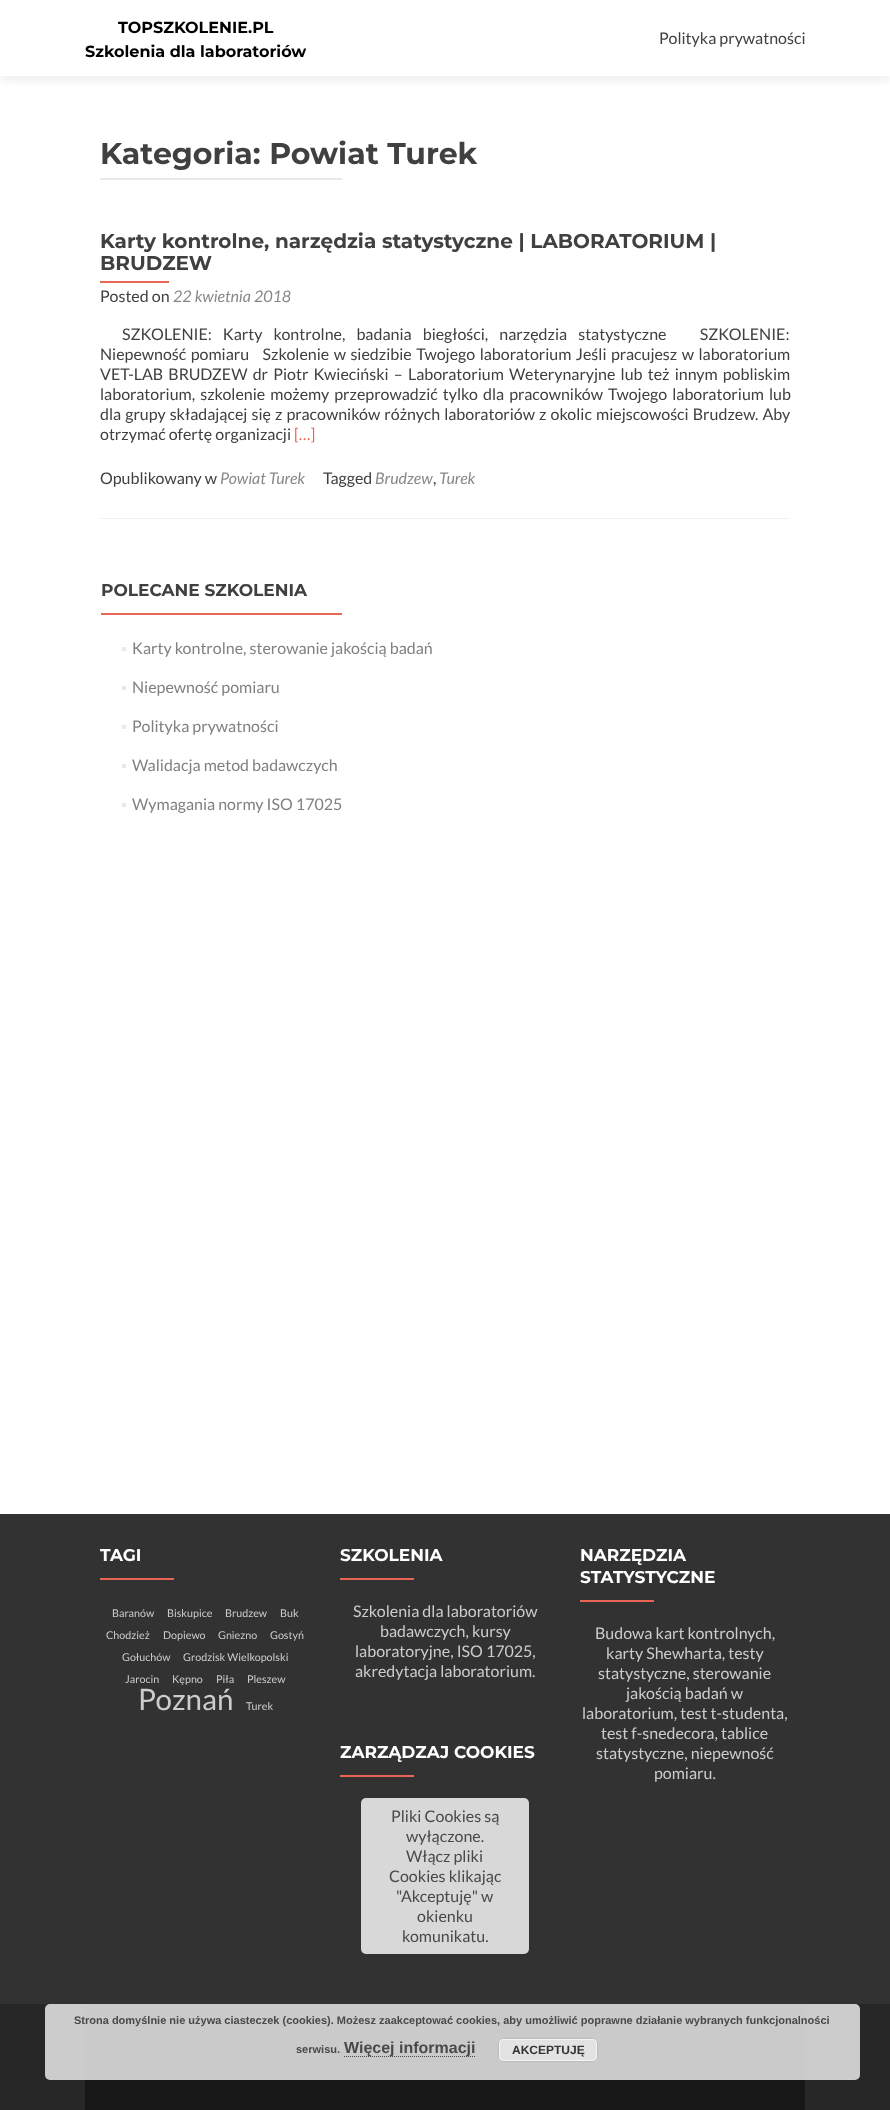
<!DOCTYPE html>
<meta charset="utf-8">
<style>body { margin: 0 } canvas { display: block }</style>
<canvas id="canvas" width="890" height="2110"></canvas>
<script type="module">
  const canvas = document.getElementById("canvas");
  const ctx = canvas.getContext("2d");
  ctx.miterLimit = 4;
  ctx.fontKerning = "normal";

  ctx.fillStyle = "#ffffff";
  ctx.fillRect(0, 0, 890, 2110);
  ctx.save();
  ctx.beginPath();
  ctx.rect(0, 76, 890, 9);
  ctx.clip();
  ctx.fillStyle = "rgba(50, 50, 50, 0.08)";
  ctx.filter = "blur(5.5px)";
  ctx.beginPath();
  ctx.rect(0, 5, 890, 76);
  ctx.fill();
  ctx.filter = "none";
  ctx.restore();
  ctx.font = "bold 16px Montserrat";
  ctx.fillStyle = "#000000";
  ctx.fillText("TOPSZKOLENIE.PL", 118, 33);
  ctx.fillText("Szkolenia dla laboratoriów", 85, 57);
  ctx.font = "16px Lato";
  ctx.fillStyle = "#404040";
  ctx.fillText("Polityka prywatności", 659, 44);
  ctx.font = "bold 30px Montserrat";
  ctx.fillText("Kategoria: Powiat Turek", 100, 164);
  ctx.fillStyle = "#e9e9e9";
  ctx.fillRect(100, 178, 242, 2);
  ctx.fillStyle = "#f2f2f2";
  ctx.fillRect(100, 518, 690, 1);
  ctx.font = "bold 20px Montserrat";
  ctx.fillStyle = "#404040";
  ctx.fillText("Karty kontrolne, narzędzia statystyczne | LABORATORIUM |", 100, 248);
  ctx.fillText("BRUDZEW", 100, 270);
  ctx.fillStyle = "#e96656";
  ctx.fillRect(100, 281, 69, 2);
  ctx.font = "16px Lato";
  ctx.fillStyle = "#404040";
  ctx.fillText("Posted on", 100, 302);
  ctx.font = "italic 16px Lato";
  ctx.fillStyle = "#888888";
  ctx.fillText("22 kwietnia 2018", 173, 302);
  ctx.wordSpacing = "8px";
  ctx.font = "16px Lato";
  ctx.fillStyle = "#404040";
  ctx.fillText("SZKOLENIE: Karty kontrolne, badania biegłości, narzędzia statystyczne   SZKOLENIE:", 122, 340);
  ctx.wordSpacing = "1.4px";
  ctx.fillText("Niepewność pomiaru   Szkolenie w siedzibie Twojego laboratorium Jeśli pracujesz w laboratorium", 100, 360);
  ctx.wordSpacing = "2.1px";
  ctx.fillText("VET-LAB BRUDZEW dr Piotr Kwieciński – Laboratorium Weterynaryjne lub też innym pobliskim", 100, 380);
  ctx.wordSpacing = "2px";
  ctx.fillText("laboratorium, szkolenie możemy przeprowadzić tylko dla pracowników Twojego laboratorium lub", 100, 400);
  ctx.wordSpacing = "1px";
  ctx.fillText("dla grupy składającej się z pracowników różnych laboratoriów z okolic miejscowości Brudzew. Aby", 100, 420);
  ctx.wordSpacing = "0px";
  ctx.fillText("otrzymać ofertę organizacji", 100, 440);
  ctx.fillStyle = "#e96656";
  ctx.fillText("[…]", 294, 440);
  ctx.fillStyle = "#404040";
  ctx.fillText("Opublikowany w", 100, 484);
  ctx.font = "italic 16px Lato";
  ctx.fillStyle = "#888888";
  ctx.fillText("Powiat Turek", 220, 484);
  ctx.font = "16px Lato";
  ctx.fillStyle = "#404040";
  ctx.fillText("Tagged", 323, 484);
  ctx.font = "italic 16px Lato";
  ctx.fillStyle = "#888888";
  ctx.fillText("Brudzew", 375, 484);
  ctx.font = "16px Lato";
  ctx.fillStyle = "#404040";
  ctx.fillText(",", 433, 484);
  ctx.font = "italic 16px Lato";
  ctx.fillStyle = "#888888";
  ctx.fillText("Turek", 439, 484);
  ctx.fillStyle = "#f2f2f2";
  ctx.fillRect(85, 250, 1, 1);
  ctx.font = "bold 17px Montserrat";
  ctx.fillStyle = "#404040";
  ctx.fillText("POLECANE SZKOLENIA", 101, 596);
  ctx.fillStyle = "#e96656";
  ctx.fillRect(101, 613, 241, 2);
  ctx.fillStyle = "#e9e9e9";
  ctx.fillRect(122, 647, 4, 4);
  ctx.font = "16px Lato";
  ctx.fillStyle = "#808080";
  ctx.fillText("Karty kontrolne, sterowanie jakością badań", 132, 654);
  ctx.fillStyle = "#e9e9e9";
  ctx.fillRect(122, 686, 4, 4);
  ctx.fillStyle = "#808080";
  ctx.fillText("Niepewność pomiaru", 132, 693);
  ctx.fillStyle = "#e9e9e9";
  ctx.fillRect(122, 725, 4, 4);
  ctx.fillStyle = "#808080";
  ctx.fillText("Polityka prywatności", 132, 732);
  ctx.fillStyle = "#e9e9e9";
  ctx.fillRect(122, 764, 4, 4);
  ctx.fillStyle = "#808080";
  ctx.fillText("Walidacja metod badawczych", 132, 771);
  ctx.fillStyle = "#e9e9e9";
  ctx.fillRect(122, 803, 4, 4);
  ctx.fillStyle = "#808080";
  ctx.fillText("Wymagania normy ISO 17025", 132, 810);
  ctx.fillStyle = "#272727";
  ctx.fillRect(0, 2004, 890, 106);
  ctx.fillStyle = "#323232";
  ctx.fillRect(0, 1514, 890, 490);
  ctx.font = "bold 17px Montserrat";
  ctx.fillStyle = "#ffffff";
  ctx.fillText("TAGI", 100, 1561);
  ctx.fillStyle = "#e96656";
  ctx.fillRect(100, 1578, 74, 2);
  ctx.font = "10.75px Lato";
  ctx.fillStyle = "#cccccc";
  ctx.fillText("Baranów", 112, 1617);
  ctx.fillText("Biskupice", 167, 1617);
  ctx.fillText("Brudzew", 225, 1617);
  ctx.fillText("Buk", 280, 1617);
  ctx.fillText("Chodzież", 106, 1639);
  ctx.fillText("Dopiewo", 163, 1639);
  ctx.fillText("Gniezno", 218, 1639);
  ctx.fillText("Gostyń", 270, 1639);
  ctx.fillText("Gołuchów", 122, 1661);
  ctx.fillText("Grodzisk Wielkopolski", 183, 1661);
  ctx.fillText("Jarocin", 125, 1683);
  ctx.fillText("Kępno", 172, 1683);
  ctx.fillText("Piła", 216, 1683);
  ctx.fillText("Pleszew", 247, 1683);
  ctx.font = "29.5px Lato";
  ctx.fillText("Poznań", 138, 1710);
  ctx.font = "10.75px Lato";
  ctx.fillText("Turek", 246, 1710);
  ctx.font = "bold 17px Montserrat";
  ctx.fillStyle = "#ffffff";
  ctx.fillText("SZKOLENIA", 340, 1561);
  ctx.fillStyle = "#e96656";
  ctx.fillRect(340, 1578, 74, 2);
  ctx.font = "16px Lato";
  ctx.fillStyle = "#cccccc";
  ctx.fillText("Szkolenia dla laboratoriów", 353, 1617);
  ctx.fillText("badawczych, kursy", 380, 1637);
  ctx.fillText("laboratoryjne, ISO 17025,", 355, 1657);
  ctx.fillText("akredytacja laboratorium.", 355, 1677);
  ctx.font = "bold 17px Montserrat";
  ctx.fillStyle = "#ffffff";
  ctx.fillText("ZARZĄDZAJ COOKIES", 340, 1758);
  ctx.fillStyle = "#e96656";
  ctx.fillRect(340, 1775, 74, 2);
  ctx.fillStyle = "#d8d8d8";
  ctx.beginPath();
  ctx.roundRect(361, 1798, 168, 156, 5);
  ctx.fill();
  ctx.font = "16px Lato";
  ctx.fillStyle = "#494949";
  ctx.fillText("Pliki Cookies są", 391, 1822);
  ctx.fillText("wyłączone.", 406, 1842);
  ctx.fillText("Włącz pliki", 406, 1862);
  ctx.fillText("Cookies klikając", 389, 1882);
  ctx.fillText("\"Akceptuję\" w", 396, 1902);
  ctx.fillText("okienku", 417, 1922);
  ctx.fillText("komunikatu.", 402, 1942);
  ctx.font = "bold 17px Montserrat";
  ctx.fillStyle = "#ffffff";
  ctx.fillText("NARZĘDZIA", 580, 1561);
  ctx.fillText("STATYSTYCZNE", 580, 1583);
  ctx.fillStyle = "#e96656";
  ctx.fillRect(580, 1600, 74, 2);
  ctx.font = "16px Lato";
  ctx.fillStyle = "#cccccc";
  ctx.fillText("Budowa kart kontrolnych,", 595, 1639);
  ctx.fillText("karty Shewharta, testy", 606, 1659);
  ctx.fillText("statystyczne, sterowanie", 598, 1679);
  ctx.fillText("jakością badań w", 626, 1699);
  ctx.fillText("laboratorium, test t-studenta,", 582, 1719);
  ctx.fillText("test f-snedecora, tablice", 601, 1739);
  ctx.fillText("statystyczne, niepewność", 596, 1759);
  ctx.fillText("pomiaru.", 654, 1779);
  ctx.fillStyle = "#171717";
  ctx.fillRect(85, 2004, 720, 106);
  ctx.fillStyle = "rgba(234, 234, 234, 0.85)";
  ctx.beginPath();
  ctx.roundRect(45, 2004, 815, 76, 5);
  ctx.fill();
  ctx.font = "bold 11px Liberation Sans";
  ctx.fillStyle = "#494949";
  ctx.fillText("Strona domyślnie nie używa ciasteczek (cookies). Możesz zaakceptować cookies, aby umożliwić poprawne działanie wybranych funkcjonalności", 74, 2024);
  ctx.fillText("serwisu.", 296, 2053);
  ctx.beginPath();
  ctx.moveTo(344, 2056.5);
  ctx.lineTo(475, 2056.5);
  ctx.strokeStyle = "#494949";
  ctx.setLineDash([1, 1]);
  ctx.stroke();
  ctx.font = "bold 16px Liberation Sans";
  ctx.fillText("Więcej informacji", 344, 2053);
  ctx.fillStyle = "#e3e3e3";
  ctx.beginPath();
  ctx.roundRect(498, 2038, 100, 24, 5);
  ctx.fill();
  ctx.beginPath();
  ctx.roundRect(499.5, 2039.5, 97, 21, 3.5);
  ctx.strokeStyle = "#f6f6f6";
  ctx.setLineDash([]);
  ctx.stroke();
  ctx.beginPath();
  ctx.roundRect(498.5, 2038.5, 99, 23, 4.5);
  ctx.strokeStyle = "#bbbbbb";
  ctx.stroke();
  ctx.font = "bold 12px Liberation Sans";
  ctx.fillStyle = "#333333";
  ctx.fillText("AKCEPTUJĘ", 512, 2054);
</script>
